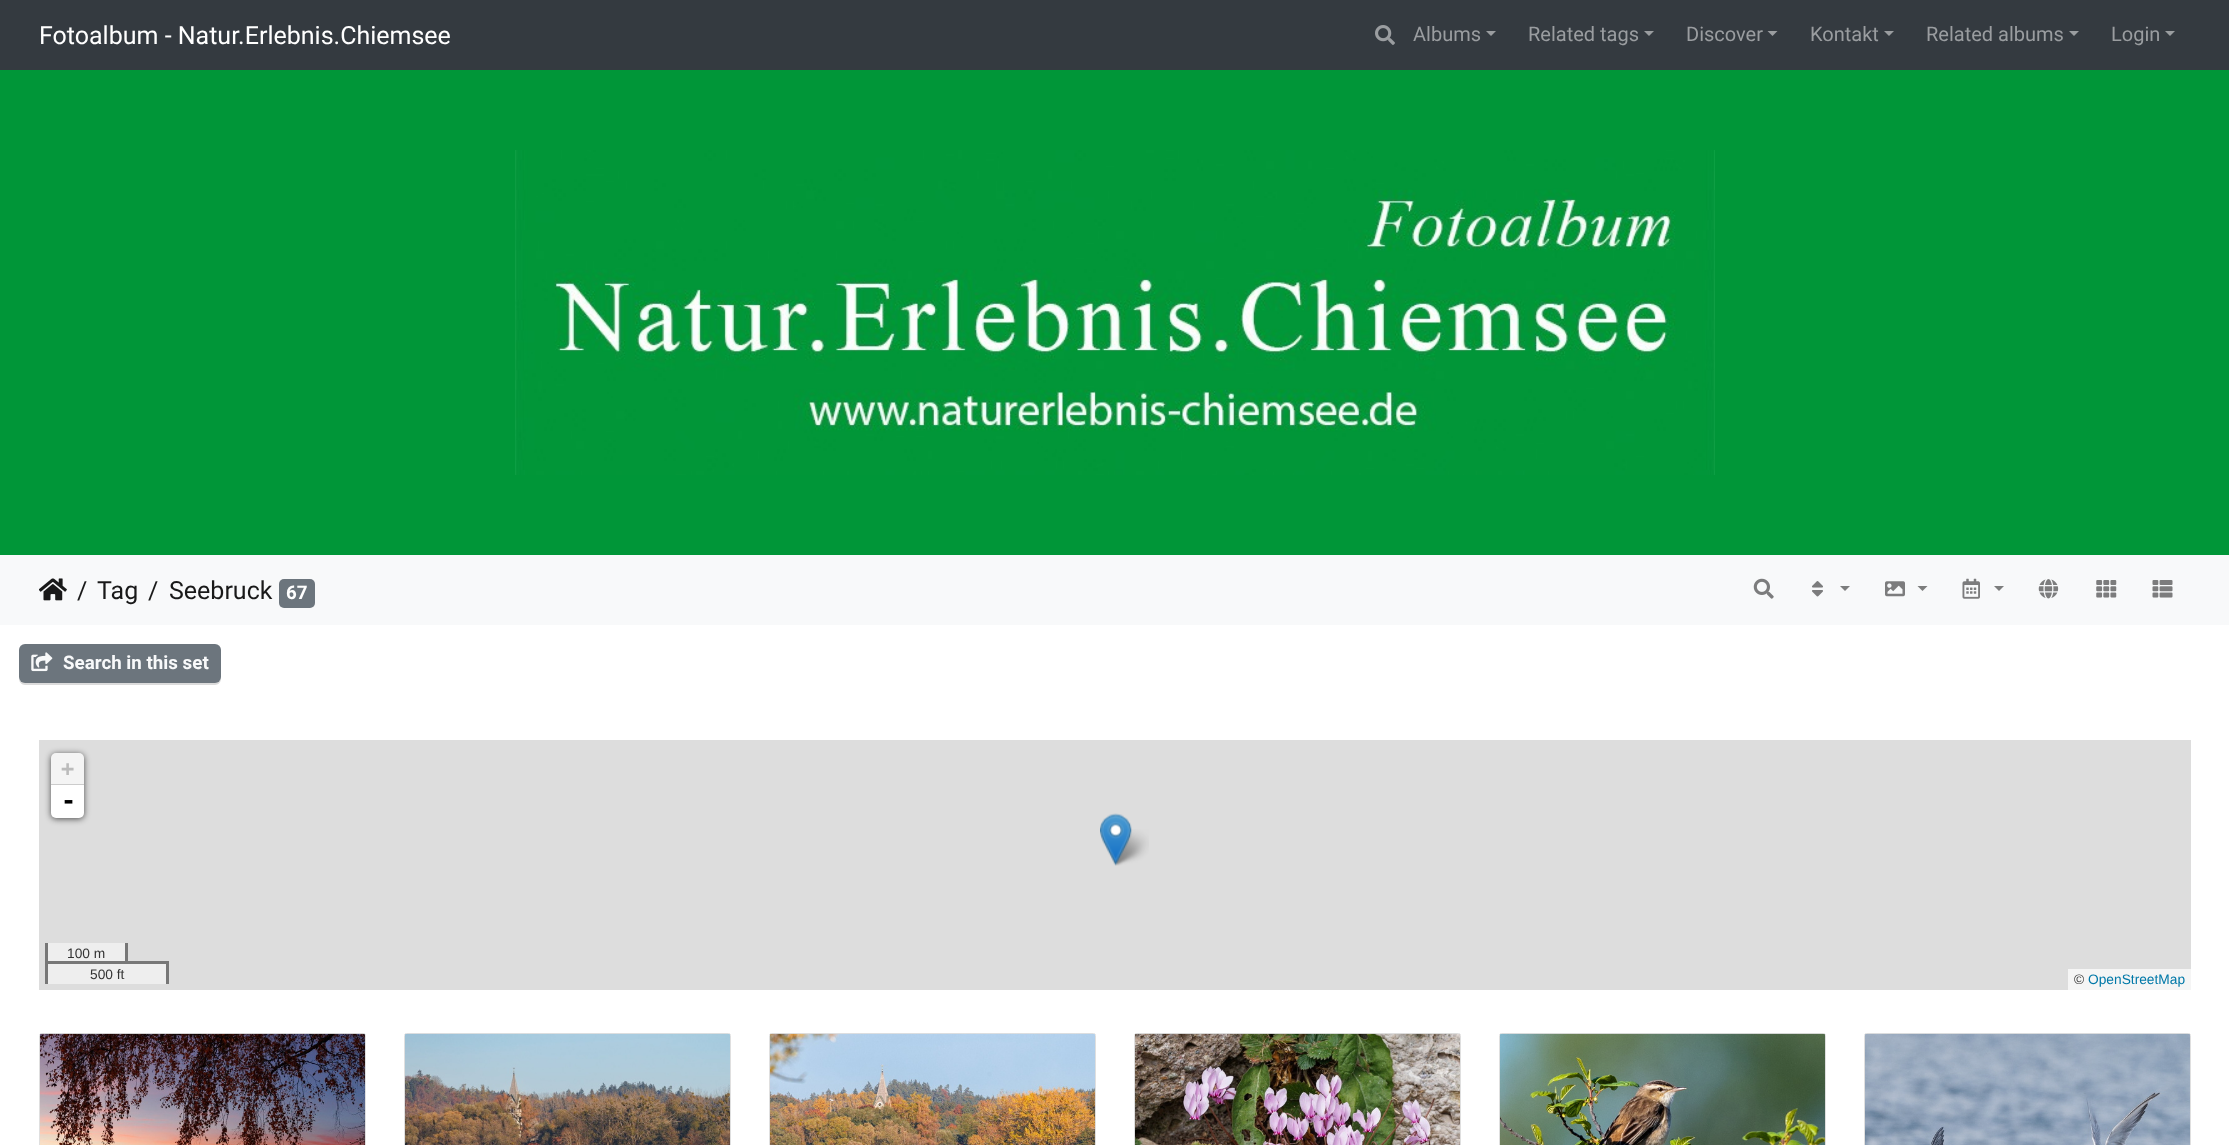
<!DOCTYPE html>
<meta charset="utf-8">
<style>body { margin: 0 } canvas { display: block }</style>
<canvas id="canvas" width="2229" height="1145"></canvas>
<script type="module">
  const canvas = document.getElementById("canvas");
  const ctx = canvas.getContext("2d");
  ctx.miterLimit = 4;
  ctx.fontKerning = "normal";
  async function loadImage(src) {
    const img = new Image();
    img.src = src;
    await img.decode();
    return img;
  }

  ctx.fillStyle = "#ffffff";
  ctx.fillRect(0, 0, 2229, 1145);
  ctx.fillStyle = "#343a40";
  ctx.fillRect(0, 0, 2229, 70);
  ctx.font = "25px Roboto";
  ctx.fillStyle = "#ffffff";
  ctx.fillText("Fotoalbum - Natur.Erlebnis.Chiemsee", 39, 44);
  ctx.drawImage(await loadImage("img1.png"), 1375, 25, 20, 20);
  ctx.font = "20px Roboto";
  ctx.fillStyle = "#9a9da0";
  ctx.fillText("Albums", 1413, 41);
  ctx.beginPath();
  ctx.moveTo(1486, 31);
  ctx.lineTo(1496, 31);
  ctx.lineTo(1491, 36);
  ctx.closePath();
  ctx.fill();
  ctx.fillText("Related tags", 1528, 41);
  ctx.beginPath();
  ctx.moveTo(1644, 31);
  ctx.lineTo(1654, 31);
  ctx.lineTo(1649, 36);
  ctx.closePath();
  ctx.fill();
  ctx.fillText("Discover", 1686, 41);
  ctx.beginPath();
  ctx.moveTo(1767.5, 31);
  ctx.lineTo(1777.5, 31);
  ctx.lineTo(1772.5, 36);
  ctx.closePath();
  ctx.fill();
  ctx.fillText("Kontakt", 1810, 41);
  ctx.beginPath();
  ctx.moveTo(1884, 31);
  ctx.lineTo(1894, 31);
  ctx.lineTo(1889, 36);
  ctx.closePath();
  ctx.fill();
  ctx.fillText("Related albums", 1926, 41);
  ctx.beginPath();
  ctx.moveTo(2069, 31);
  ctx.lineTo(2079, 31);
  ctx.lineTo(2074, 36);
  ctx.closePath();
  ctx.fill();
  ctx.fillText("Login", 2111, 41);
  ctx.beginPath();
  ctx.moveTo(2165, 31);
  ctx.lineTo(2175, 31);
  ctx.lineTo(2170, 36);
  ctx.closePath();
  ctx.fill();
  ctx.fillStyle = "#009638";
  ctx.fillRect(0, 70, 2229, 485);
  ctx.drawImage(await loadImage("img2.png"), 515, 150, 1200, 325);
  ctx.fillStyle = "#f8f9fa";
  ctx.fillRect(0, 555, 2229, 70);
  ctx.drawImage(await loadImage("img3.png"), 39, 578, 28, 23);
  ctx.font = "25px Roboto";
  ctx.fillStyle = "#191919";
  ctx.fillText("/", 77, 599);
  ctx.fillText("Tag", 97, 599);
  ctx.fillText("/", 148, 599);
  ctx.fillText("Seebruck", 169, 599);
  ctx.fillStyle = "#6c757d";
  ctx.beginPath();
  ctx.roundRect(279, 579, 36, 29, 5);
  ctx.fill();
  ctx.font = "bold 18.75px Roboto";
  ctx.fillStyle = "#ffffff";
  ctx.fillText("67", 286, 599);
  ctx.drawImage(await loadImage("img4.png"), 1753, 578, 21, 21);
  ctx.drawImage(await loadImage("img5.png"), 1812, 581, 11, 16);
  ctx.fillStyle = "#7c7d7d";
  ctx.beginPath();
  ctx.moveTo(1840, 586);
  ctx.lineTo(1850, 586);
  ctx.lineTo(1845, 591);
  ctx.closePath();
  ctx.fill();
  ctx.drawImage(await loadImage("img6.png"), 1885, 581, 20, 16);
  ctx.beginPath();
  ctx.moveTo(1917.5, 586);
  ctx.lineTo(1927.5, 586);
  ctx.lineTo(1922.5, 591);
  ctx.closePath();
  ctx.fill();
  ctx.drawImage(await loadImage("img7.png"), 1962, 578, 18, 21);
  ctx.beginPath();
  ctx.moveTo(1994, 586);
  ctx.lineTo(2004, 586);
  ctx.lineTo(1999, 591);
  ctx.closePath();
  ctx.fill();
  ctx.drawImage(await loadImage("img8.png"), 2038, 579, 21, 20);
  ctx.drawImage(await loadImage("img9.png"), 2096, 580, 21, 18);
  ctx.drawImage(await loadImage("img10.png"), 2152, 580, 21, 18);
  ctx.fillStyle = "#dbdbdb";
  ctx.beginPath();
  ctx.moveTo(19, 678);
  ctx.lineTo(19, 679);
  ctx.bezierCurveTo(19, 682, 22, 685, 25, 685);
  ctx.lineTo(215, 685);
  ctx.bezierCurveTo(218, 685, 221, 682, 221, 679);
  ctx.lineTo(221, 678);
  ctx.bezierCurveTo(220, 681, 218, 682, 215, 682);
  ctx.lineTo(25, 682);
  ctx.bezierCurveTo(22, 682, 20, 681, 19, 678);
  ctx.closePath();
  ctx.fill();
  ctx.fillStyle = "#6c757d";
  ctx.beginPath();
  ctx.roundRect(19, 644, 202, 39, 6);
  ctx.fill();
  ctx.drawImage(await loadImage("img11.png"), 31, 652, 22, 20);
  ctx.fillStyle = "#f8f9fa";
  ctx.fillText("Search in this set", 63, 669);
  ctx.fillStyle = "#dddddd";
  ctx.fillRect(39, 740, 2152, 250);
  ctx.fillStyle = "#eeeeee";
  ctx.fillRect(48, 964, 118, 20);
  ctx.fillStyle = "rgba(0, 0, 0, 0.65)";
  ctx.filter = "blur(3px)";
  ctx.beginPath();
  ctx.roundRect(51, 754, 33, 65, 5);
  ctx.fill();
  ctx.filter = "none";
  ctx.fillStyle = "#f4f4f4";
  ctx.beginPath();
  ctx.roundRect(51, 753, 33, 32, [5, 5, 0, 0]);
  ctx.fill();
  ctx.fillStyle = "#cccccc";
  ctx.fillRect(51, 784, 33, 1);
  ctx.font = "bold 22px DejaVu Sans Mono";
  ctx.fillStyle = "#bbbbbb";
  ctx.fillText("+", 61, 776);
  ctx.fillStyle = "#ffffff";
  ctx.beginPath();
  ctx.roundRect(51, 785, 33, 33, [0, 0, 5, 5]);
  ctx.fill();
  ctx.font = "bold 25px DejaVu Sans Mono";
  ctx.fillStyle = "#000000";
  ctx.fillText("-", 61, 809);
  ctx.fillStyle = "#eeeeee";
  ctx.fillRect(48, 943, 77, 18);
  ctx.fillStyle = "#777777";
  ctx.fillRect(125, 943, 3, 21);
  ctx.fillRect(45, 943, 3, 21);
  ctx.font = "13.75px Liberation Sans";
  ctx.fillStyle = "#333333";
  ctx.fillText("100 m", 67, 958);
  ctx.fillStyle = "#777777";
  ctx.fillRect(45, 961, 124, 3);
  ctx.fillRect(166, 961, 3, 23);
  ctx.fillRect(45, 961, 3, 23);
  ctx.fillStyle = "#333333";
  ctx.fillText("500 ft", 90, 979);
  ctx.fillStyle = "#f5f5f5";
  ctx.fillRect(2068, 969, 123, 21);
  ctx.fillStyle = "#333333";
  ctx.fillText("©", 2074, 984);
  ctx.fillStyle = "#0078a8";
  ctx.fillText("OpenStreetMap", 2088, 984);
  ctx.drawImage(await loadImage("img13.png"), 1111, 829, 38, 37);
  ctx.drawImage(await loadImage("img12.png"), 1100, 813, 32, 53);
  ctx.beginPath();
  ctx.roundRect(39.5, 1033.5, 326, 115, 2);
  ctx.strokeStyle = "#dfdfdf";
  ctx.stroke();
  ctx.drawImage(await loadImage("img14.png"), 40, 1033, 325, 112);
  ctx.beginPath();
  ctx.roundRect(404.5, 1033.5, 326, 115, 2);
  ctx.stroke();
  ctx.drawImage(await loadImage("img15.png"), 405, 1033, 325, 112);
  ctx.beginPath();
  ctx.roundRect(769.5, 1033.5, 326, 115, 2);
  ctx.stroke();
  ctx.drawImage(await loadImage("img16.png"), 770, 1033, 325, 112);
  ctx.beginPath();
  ctx.roundRect(1134.5, 1033.5, 326, 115, 2);
  ctx.stroke();
  ctx.drawImage(await loadImage("img17.png"), 1135, 1033, 325, 112);
  ctx.beginPath();
  ctx.roundRect(1499.5, 1033.5, 326, 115, 2);
  ctx.stroke();
  ctx.drawImage(await loadImage("img18.png"), 1500, 1033, 325, 112);
  ctx.beginPath();
  ctx.roundRect(1864.5, 1033.5, 326, 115, 2);
  ctx.stroke();
  ctx.drawImage(await loadImage("img19.png"), 1865, 1033, 325, 112);
</script>
